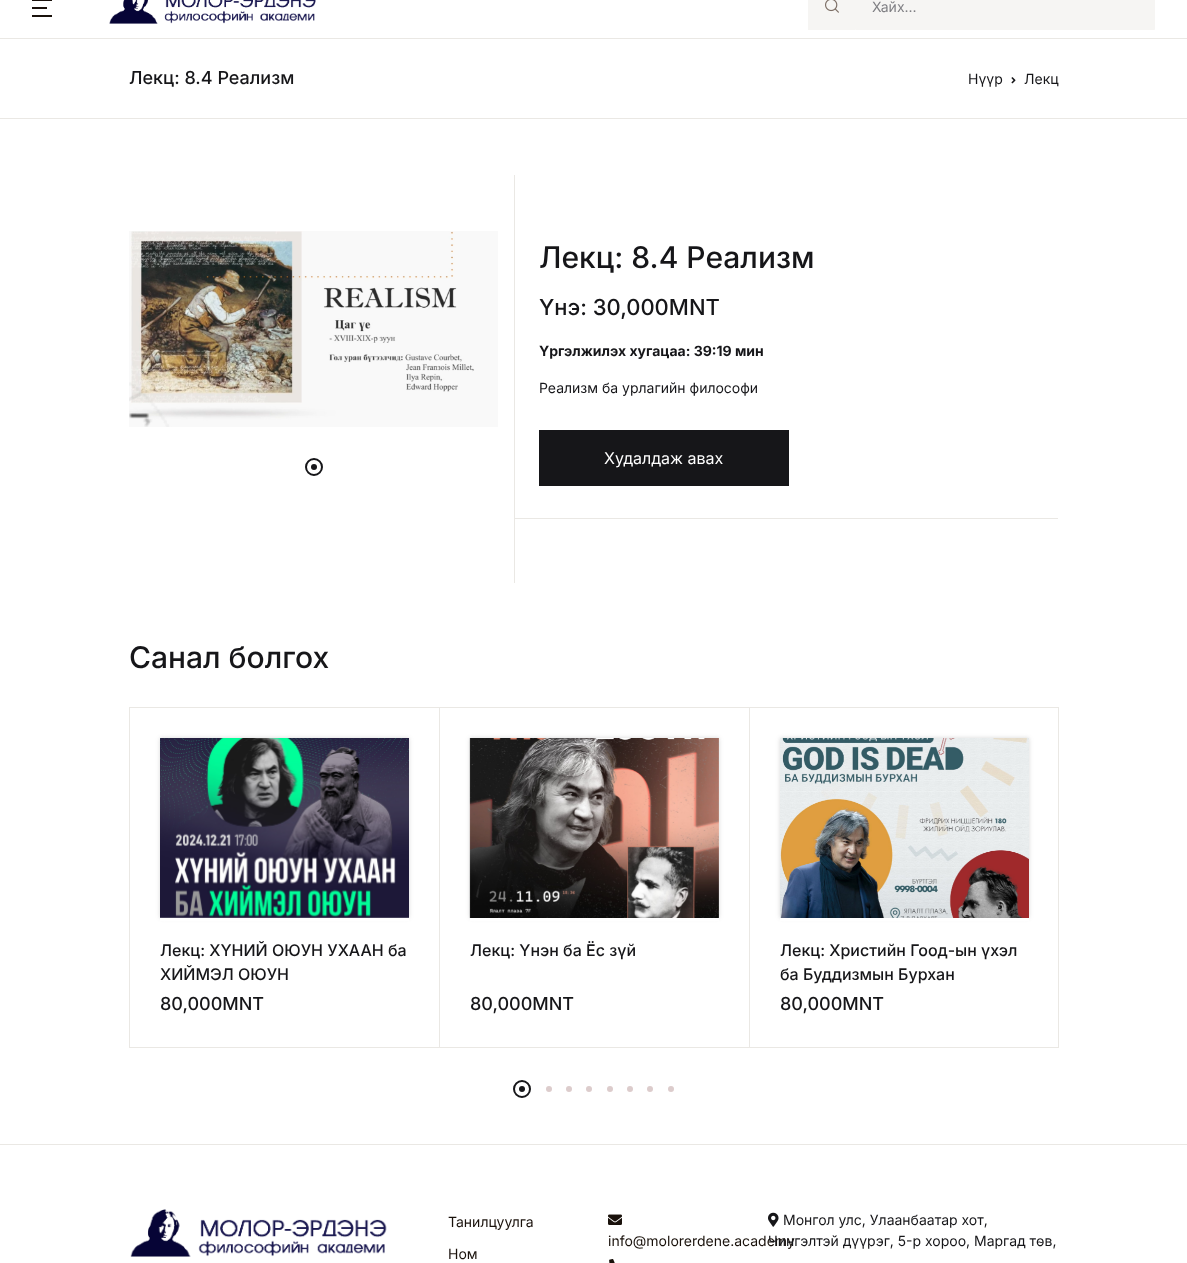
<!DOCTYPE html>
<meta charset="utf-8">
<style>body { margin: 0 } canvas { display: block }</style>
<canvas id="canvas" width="1187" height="1263"></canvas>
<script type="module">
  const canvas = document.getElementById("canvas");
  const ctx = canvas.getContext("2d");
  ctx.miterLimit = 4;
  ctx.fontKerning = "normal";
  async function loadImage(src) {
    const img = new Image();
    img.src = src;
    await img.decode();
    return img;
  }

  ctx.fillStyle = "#ffffff";
  ctx.fillRect(0, 0, 1187, 1263);
  ctx.fillStyle = "#eae8e4";
  ctx.fillRect(0, 38, 1187, 1);
  ctx.fillStyle = "#19110b";
  ctx.fillRect(32, 0, 20, 1);
  ctx.fillRect(32, 7, 15, 2);
  ctx.fillRect(32, 15, 20, 2);
  ctx.drawImage(await loadImage("img1.png"), 109, 0, 207, 24);
  ctx.fillStyle = "#f6f5f3";
  ctx.fillRect(808, 0, 47, 30);
  ctx.drawImage(await loadImage("img2.png"), 825, 0, 14, 13);
  ctx.beginPath();
  ctx.rect(855.5, -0.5, 299, 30);
  ctx.fill();
  ctx.strokeStyle = "#f6f5f3";
  ctx.stroke();
  ctx.font = "14px Inter";
  ctx.fillStyle = "#7f7f83";
  ctx.fillText("Хайх...", 872, 12);
  ctx.fillStyle = "#eae8e4";
  ctx.fillRect(0, 118, 1187, 1);
  ctx.font = "500 18px Inter";
  ctx.fillStyle = "#161619";
  ctx.fillText("Лекц: 8.4 Реализм", 129, 84);
  ctx.font = "14px Inter";
  ctx.fillText("Нүүр", 968, 84);
  ctx.drawImage(await loadImage("img3.png"), 1011, 77, 5, 7);
  ctx.fillText("Лекц", 1024, 84);
  ctx.drawImage(await loadImage("img4.png"), 129, 231, 369, 196);
  ctx.beginPath();
  ctx.arc(314, 467, 8, 0, Math.PI * 2);
  ctx.strokeStyle = "#161619";
  ctx.lineWidth = 2;
  ctx.stroke();
  ctx.beginPath();
  ctx.arc(314, 467, 3, 0, Math.PI * 2);
  ctx.fill();
  ctx.fillStyle = "#eae8e4";
  ctx.fillRect(514, 175, 1, 408);
  ctx.fillRect(515, 518, 543, 1);
  ctx.font = "500 30px Inter";
  ctx.fillStyle = "#161619";
  ctx.fillText("Лекц: 8.4 Реализм", 539, 268);
  ctx.font = "500 22px Inter";
  ctx.fillText("Үнэ: 30,000MNT", 539, 315);
  ctx.font = "bold 14px Inter";
  ctx.fillText("Үргэлжилэх хугацаа: 39:19 мин", 539, 356);
  ctx.font = "14px Inter";
  ctx.fillText("Реализм ба урлагийн философи", 539, 393);
  ctx.fillRect(539, 430, 250, 56);
  ctx.font = "16px Inter";
  ctx.fillStyle = "#ffffff";
  ctx.fillText("Худалдаж авах", 604, 464);
  ctx.font = "500 30px Inter";
  ctx.fillStyle = "#161619";
  ctx.fillText("Санал болгох", 129, 668);
  ctx.fillStyle = "#eae8e4";
  ctx.fillRect(129, 707, 930, 1);
  ctx.fillRect(1058, 707, 1, 341);
  ctx.fillRect(129, 707, 1, 341);
  ctx.fillRect(439, 708, 1, 340);
  ctx.fillRect(130, 1047, 310, 1);
  ctx.fillStyle = "rgba(57, 57, 57, 0.2)";
  ctx.filter = "blur(2px)";
  ctx.beginPath();
  ctx.rect(160, 738, 249, 180);
  ctx.fill();
  ctx.filter = "none";
  ctx.drawImage(await loadImage("img5.png"), 160, 738, 249, 180);
  ctx.fillStyle = "#ffffff";
  ctx.fillRect(160, 918, 249, 3);
  ctx.font = "500 16px Inter";
  ctx.fillStyle = "#161619";
  ctx.fillText("Лекц: ХҮНИЙ ОЮУН УХААН ба", 160, 956);
  ctx.fillText("ХИЙМЭЛ ОЮУН", 160, 980);
  ctx.font = "500 18px Inter";
  ctx.fillText("80,000MNT", 160, 1010);
  ctx.fillStyle = "#eae8e4";
  ctx.fillRect(749, 708, 1, 340);
  ctx.fillRect(440, 1047, 618, 1);
  ctx.fillStyle = "rgba(57, 57, 57, 0.2)";
  ctx.filter = "blur(2px)";
  ctx.beginPath();
  ctx.rect(470, 738, 249, 180);
  ctx.fill();
  ctx.filter = "none";
  ctx.drawImage(await loadImage("img6.png"), 469, 738, 250, 180);
  ctx.fillStyle = "#ffffff";
  ctx.fillRect(470, 918, 249, 3);
  ctx.font = "500 16px Inter";
  ctx.fillStyle = "#161619";
  ctx.fillText("Лекц: Үнэн ба Ёс зүй", 470, 956);
  ctx.font = "500 18px Inter";
  ctx.fillText("80,000MNT", 470, 1010);
  ctx.fillStyle = "rgba(57, 57, 57, 0.2)";
  ctx.filter = "blur(2px)";
  ctx.beginPath();
  ctx.rect(780, 738, 249, 180);
  ctx.fill();
  ctx.filter = "none";
  ctx.drawImage(await loadImage("img7.png"), 780, 738, 249, 180);
  ctx.fillStyle = "#ffffff";
  ctx.fillRect(780, 918, 249, 3);
  ctx.font = "500 16px Inter";
  ctx.fillStyle = "#161619";
  ctx.fillText("Лекц: Христийн Гоод-ын үхэл", 780, 956);
  ctx.fillText("ба Буддизмын Бурхан", 780, 980);
  ctx.font = "500 18px Inter";
  ctx.fillText("80,000MNT", 780, 1010);
  ctx.beginPath();
  ctx.arc(522, 1089, 8, 0, Math.PI * 2);
  ctx.stroke();
  ctx.beginPath();
  ctx.arc(522, 1089, 3, 0, Math.PI * 2);
  ctx.fill();
  ctx.fillStyle = "#dccccc";
  ctx.beginPath();
  ctx.arc(549, 1089, 3, 0, Math.PI * 2);
  ctx.fill();
  ctx.beginPath();
  ctx.arc(569, 1089, 3, 0, Math.PI * 2);
  ctx.fill();
  ctx.beginPath();
  ctx.arc(589, 1089, 3, 0, Math.PI * 2);
  ctx.fill();
  ctx.beginPath();
  ctx.arc(610, 1089, 3, 0, Math.PI * 2);
  ctx.fill();
  ctx.beginPath();
  ctx.arc(630, 1089, 3, 0, Math.PI * 2);
  ctx.fill();
  ctx.beginPath();
  ctx.arc(650, 1089, 3, 0, Math.PI * 2);
  ctx.fill();
  ctx.beginPath();
  ctx.arc(671, 1089, 3, 0, Math.PI * 2);
  ctx.fill();
  ctx.fillStyle = "#eae8e4";
  ctx.fillRect(0, 1144, 1187, 1);
  ctx.drawImage(await loadImage("img8.png"), 130, 1209, 257, 48);
  ctx.font = "14px Inter";
  ctx.fillStyle = "#19110b";
  ctx.fillText("Танилцуулга", 448, 1227);
  ctx.fillText("Ном", 448, 1259);
  ctx.drawImage(await loadImage("img9.png"), 608, 1214, 14, 11);
  ctx.fillText("info@molorerdene.academy", 608, 1246);
  ctx.drawImage(await loadImage("img10.png"), 609, 1259, 6, 4);
  ctx.drawImage(await loadImage("img11.png"), 768, 1212, 11, 15);
  ctx.fillStyle = "#161619";
  ctx.fillText("Монгол улс, Улаанбаатар хот,", 783, 1225);
  ctx.fillText("Чингэлтэй дүүрэг, 5-р хороо, Маргад төв,", 768, 1246);
</script>
